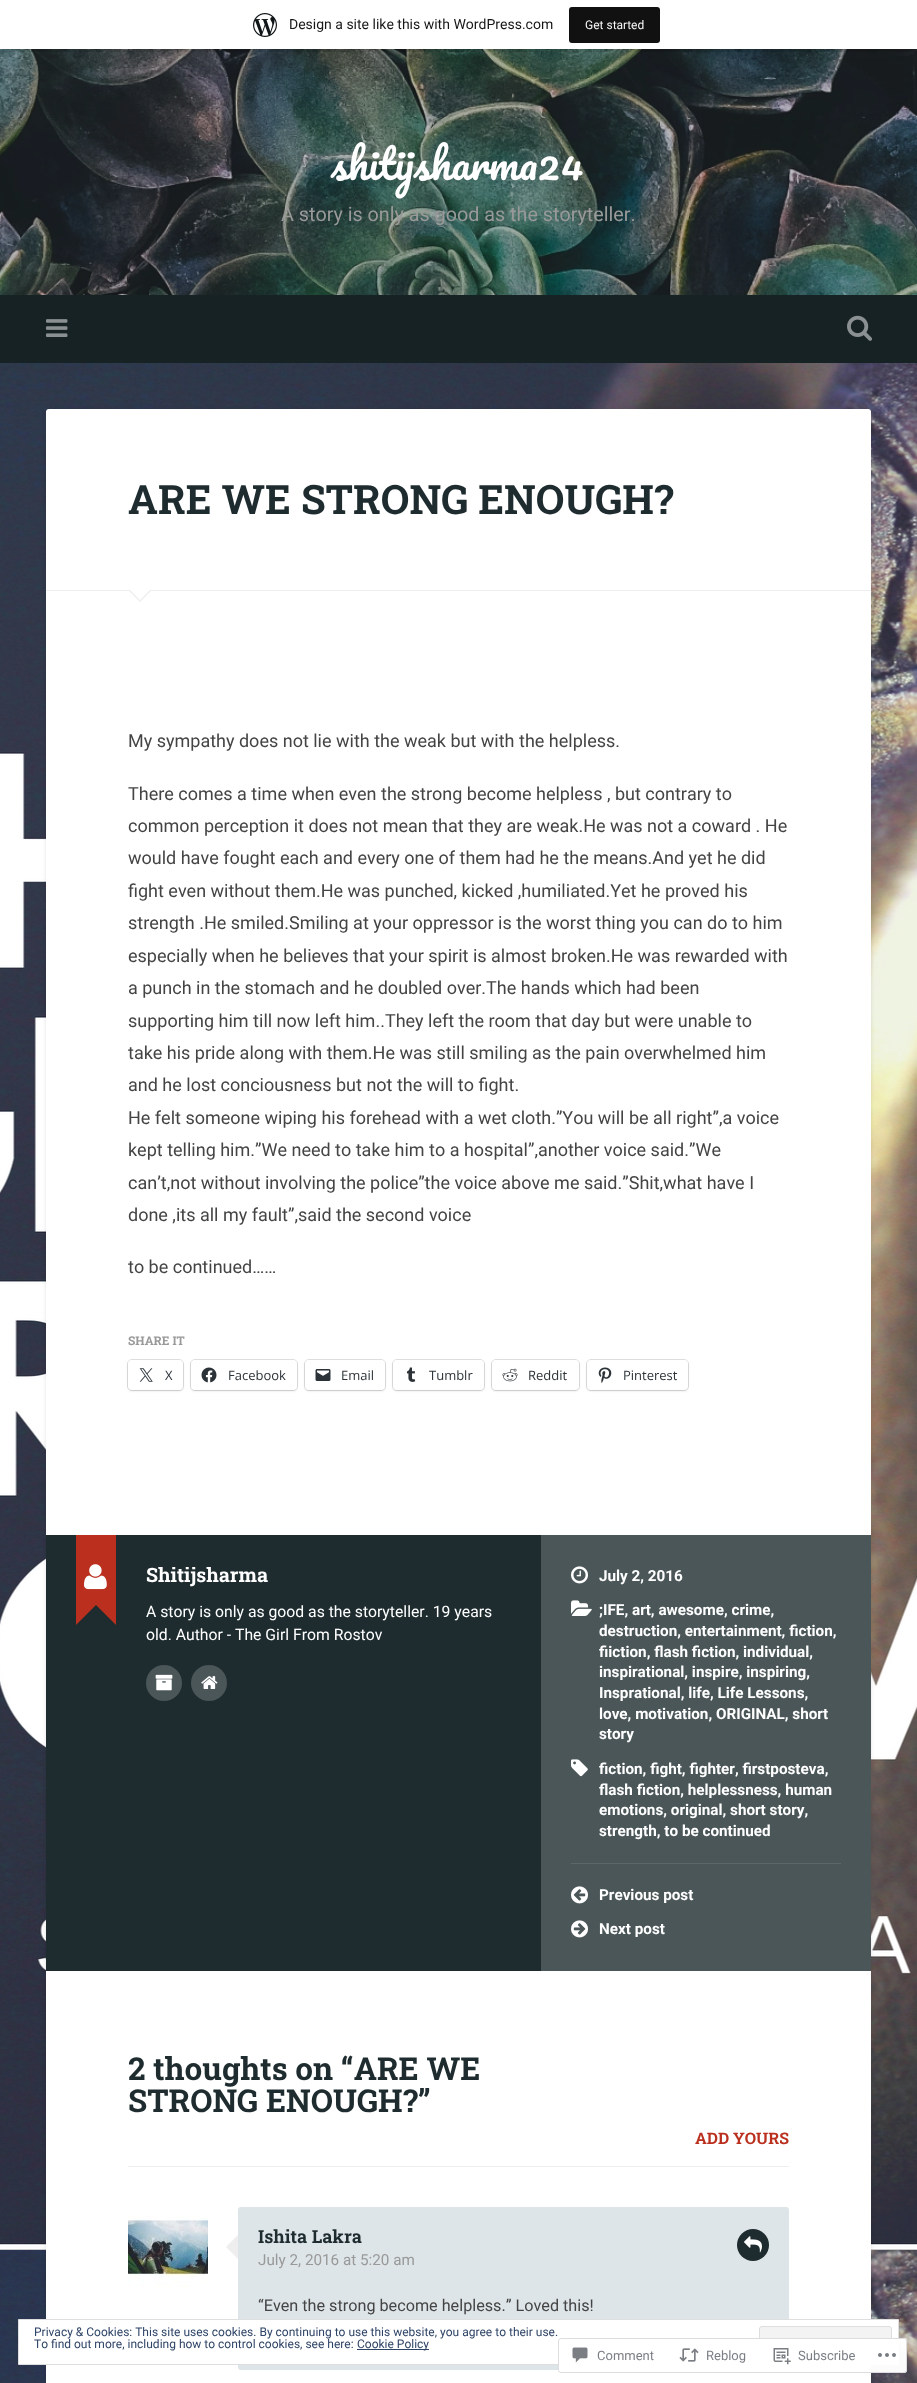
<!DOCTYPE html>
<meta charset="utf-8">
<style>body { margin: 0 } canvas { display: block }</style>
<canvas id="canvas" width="917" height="2383"></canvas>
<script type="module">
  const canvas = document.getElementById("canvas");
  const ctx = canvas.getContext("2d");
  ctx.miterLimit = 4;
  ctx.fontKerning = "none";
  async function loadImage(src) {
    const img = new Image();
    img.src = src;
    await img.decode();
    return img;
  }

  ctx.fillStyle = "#ffffff";
  ctx.fillRect(0, 0, 917, 2383);
  ctx.drawImage(await loadImage("img1.png"), 0, 363, 917, 2020);
  ctx.drawImage(await loadImage("img3.png"), 0, 49, 917, 246);
  ctx.fillStyle = "rgba(0, 0, 0, 0.05)";
  ctx.filter = "blur(1px)";
  ctx.beginPath();
  ctx.rect(0, 1, 917, 49);
  ctx.fill();
  ctx.filter = "none";
  ctx.fillStyle = "rgba(0, 0, 0, 0.08)";
  ctx.beginPath();
  ctx.moveTo(1, 49);
  ctx.lineTo(1, 52);
  ctx.lineTo(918, 52);
  ctx.lineTo(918, 3);
  ctx.lineTo(917, 3);
  ctx.lineTo(917, 49);
  ctx.closePath();
  ctx.fill();
  ctx.fillStyle = "#ffffff";
  ctx.fillRect(0, 0, 917, 49);
  ctx.drawImage(await loadImage("img2.png"), 253, 13, 24, 24);
  ctx.font = "14px Roboto";
  ctx.fillStyle = "#171717";
  ctx.fillText("Design a site like this with WordPress.com", 289, 29);
  ctx.fillStyle = "#111111";
  ctx.beginPath();
  ctx.roundRect(569, 7, 91, 36, 3);
  ctx.fill();
  ctx.font = "12px Roboto";
  ctx.fillStyle = "#f6f7f7";
  ctx.fillText("Get started", 585, 29);
  ctx.font = "40.5px Pacifico";
  ctx.fillStyle = "#ffffff";
  ctx.fillText("shitijsharma24", 331, 180);
  ctx.font = "19.75px Roboto";
  ctx.fillStyle = "#999999";
  ctx.fillText("A story is only as good as the storyteller.", 281, 221);
  ctx.fillStyle = "#172225";
  ctx.fillRect(0, 295, 917, 68);
  ctx.drawImage(await loadImage("img4.png"), 46, 319, 22, 18);
  ctx.drawImage(await loadImage("img5.png"), 847, 315, 25, 26);
  ctx.fillStyle = "rgba(0, 0, 0, 0.1)";
  ctx.filter = "blur(2px)";
  ctx.beginPath();
  ctx.roundRect(46, 410, 825, 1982, 3);
  ctx.fill();
  ctx.filter = "none";
  ctx.fillStyle = "#ffffff";
  ctx.beginPath();
  ctx.roundRect(46, 409, 825, 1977, 3);
  ctx.fill();
  ctx.fillStyle = "#eeeeee";
  ctx.fillRect(46, 590, 825, 1);
  ctx.font = "bold 40.5px Roboto Slab";
  ctx.fillStyle = "#1e2c30";
  ctx.fillText("ARE WE STRONG ENOUGH?", 128, 514);
  ctx.fillStyle = "#eeeeee";
  ctx.beginPath();
  ctx.moveTo(128, 590);
  ctx.lineTo(152, 590);
  ctx.lineTo(140, 602);
  ctx.closePath();
  ctx.fill();
  ctx.fillStyle = "#ffffff";
  ctx.beginPath();
  ctx.moveTo(129, 589);
  ctx.lineTo(151, 589);
  ctx.lineTo(140, 600);
  ctx.closePath();
  ctx.fill();
  ctx.font = "18px Roboto";
  ctx.fillStyle = "#444444";
  ctx.fillText("My sympathy does not lie with the weak but with the helpless.", 128, 747);
  ctx.fillText("There comes a time when even the strong become helpless , but contrary to", 128, 800);
  ctx.fillText("common perception it does not mean that they are weak.He was not a coward . He", 128, 832);
  ctx.fillText("would have fought each and every one of them had he the means.And yet he did", 128, 864);
  ctx.fillText("fight even without them.He was punched, kicked ,humiliated.Yet he proved his", 128, 897);
  ctx.fillText("strength .He smiled.Smiling at your oppressor is the worst thing you can do to him", 128, 929);
  ctx.fillText("especially when he believes that your spirit is almost broken.He was rewarded with", 128, 962);
  ctx.fillText("a punch in the stomach and he doubled over.The hands which had been", 128, 994);
  ctx.fillText("supporting him till now left him..They left the room that day but were unable to", 128, 1027);
  ctx.fillText("take his pride along with them.He was still smiling as the pain overwhelmed him", 128, 1059);
  ctx.fillText("and he lost conciousness but not the will to fight.", 128, 1091);
  ctx.fillText("He felt someone wiping his forehead with a wet cloth.”You will be all right”,a voice", 128, 1124);
  ctx.fillText("kept telling him.”We need to take him to a hospital”,another voice said.”We", 128, 1156);
  ctx.fillText("can’t,not without involving the police”the voice above me said.”Shit,what have I", 128, 1189);
  ctx.fillText("done ,its all my fault”,said the second voice", 128, 1221);
  ctx.fillText("to be continued……", 128, 1273);
  ctx.font = "bold 12px Roboto Slab";
  ctx.fillStyle = "#999999";
  ctx.fillText("SHARE IT", 128, 1345);
  ctx.beginPath();
  ctx.roundRect(127.5, 1359.5, 56, 31, 4.5);
  ctx.strokeStyle = "#e0e0e0";
  ctx.stroke();
  ctx.fillStyle = "rgba(0, 0, 0, 0.12)";
  ctx.filter = "blur(1px)";
  ctx.beginPath();
  ctx.roundRect(128, 1361, 55, 30, 4);
  ctx.fill();
  ctx.filter = "none";
  ctx.fillStyle = "#ffffff";
  ctx.beginPath();
  ctx.roundRect(128, 1360, 55, 30, 4);
  ctx.fill();
  ctx.drawImage(await loadImage("img6.png"), 139, 1368, 14, 14);
  ctx.font = "13px Open Sans";
  ctx.fillStyle = "#2c3338";
  ctx.fillText("X", 165, 1380);
  ctx.beginPath();
  ctx.roundRect(190.5, 1359.5, 107, 31, 4.5);
  ctx.stroke();
  ctx.fillStyle = "rgba(0, 0, 0, 0.12)";
  ctx.filter = "blur(1px)";
  ctx.beginPath();
  ctx.roundRect(191, 1361, 106, 30, 4);
  ctx.fill();
  ctx.filter = "none";
  ctx.fillStyle = "#ffffff";
  ctx.beginPath();
  ctx.roundRect(191, 1360, 106, 30, 4);
  ctx.fill();
  ctx.drawImage(await loadImage("img7.png"), 201, 1367, 16, 16);
  ctx.fillStyle = "#2c3338";
  ctx.fillText("Facebook", 228, 1380);
  ctx.beginPath();
  ctx.roundRect(304.5, 1359.5, 81, 31, 4.5);
  ctx.stroke();
  ctx.fillStyle = "rgba(0, 0, 0, 0.12)";
  ctx.filter = "blur(1px)";
  ctx.beginPath();
  ctx.roundRect(305, 1361, 80, 30, 4);
  ctx.fill();
  ctx.filter = "none";
  ctx.fillStyle = "#ffffff";
  ctx.beginPath();
  ctx.roundRect(305, 1360, 80, 30, 4);
  ctx.fill();
  ctx.drawImage(await loadImage("img8.png"), 315, 1369, 16, 12);
  ctx.fillStyle = "#2c3338";
  ctx.fillText("Email", 341, 1380);
  ctx.beginPath();
  ctx.roundRect(392.5, 1359.5, 92, 31, 4.5);
  ctx.stroke();
  ctx.fillStyle = "rgba(0, 0, 0, 0.12)";
  ctx.filter = "blur(1px)";
  ctx.beginPath();
  ctx.roundRect(393, 1361, 91, 30, 4);
  ctx.fill();
  ctx.filter = "none";
  ctx.fillStyle = "#ffffff";
  ctx.beginPath();
  ctx.roundRect(393, 1360, 91, 30, 4);
  ctx.fill();
  ctx.drawImage(await loadImage("img9.png"), 406, 1367, 10, 15);
  ctx.fillStyle = "#2c3338";
  ctx.fillText("Tumblr", 429, 1380);
  ctx.beginPath();
  ctx.roundRect(491.5, 1359.5, 88, 31, 4.5);
  ctx.stroke();
  ctx.fillStyle = "rgba(0, 0, 0, 0.12)";
  ctx.filter = "blur(1px)";
  ctx.beginPath();
  ctx.roundRect(492, 1361, 87, 30, 4);
  ctx.fill();
  ctx.filter = "none";
  ctx.fillStyle = "#ffffff";
  ctx.beginPath();
  ctx.roundRect(492, 1360, 87, 30, 4);
  ctx.fill();
  ctx.drawImage(await loadImage("img10.png"), 502, 1368, 16, 14);
  ctx.fillStyle = "#2c3338";
  ctx.fillText("Reddit", 528, 1380);
  ctx.beginPath();
  ctx.roundRect(586.5, 1359.5, 102, 31, 4.5);
  ctx.stroke();
  ctx.fillStyle = "rgba(0, 0, 0, 0.12)";
  ctx.filter = "blur(1px)";
  ctx.beginPath();
  ctx.roundRect(587, 1361, 101, 30, 4);
  ctx.fill();
  ctx.filter = "none";
  ctx.fillStyle = "#ffffff";
  ctx.beginPath();
  ctx.roundRect(587, 1360, 101, 30, 4);
  ctx.fill();
  ctx.drawImage(await loadImage("img11.png"), 598, 1367, 14, 16);
  ctx.fillStyle = "#2c3338";
  ctx.fillText("Pinterest", 623, 1380);
  ctx.fillStyle = "#1e2c30";
  ctx.fillRect(46, 1535, 495, 436);
  ctx.fillStyle = "#ba2f1d";
  ctx.beginPath();
  ctx.moveTo(116, 1585);
  ctx.lineTo(116, 1625);
  ctx.lineTo(96, 1605);
  ctx.closePath();
  ctx.moveTo(76, 1625);
  ctx.lineTo(76, 1585);
  ctx.lineTo(96, 1605);
  ctx.closePath();
  ctx.fill();
  ctx.fillRect(76, 1535, 40, 70);
  ctx.drawImage(await loadImage("img12.png"), 84, 1564, 23, 26);
  ctx.font = "bold 19.75px Roboto Slab";
  ctx.fillStyle = "#ffffff";
  ctx.fillText("Shitijsharma", 146, 1582);
  ctx.font = "15.75px Roboto";
  ctx.fillText("A story is only as good as the storyteller. 19 years", 146, 1617);
  ctx.fillText("old. Author - The Girl From Rostov", 146, 1640);
  ctx.fillStyle = "#4b5659";
  ctx.beginPath();
  ctx.arc(164, 1683, 18, 0, Math.PI * 2);
  ctx.fill();
  ctx.drawImage(await loadImage("img13.png"), 155, 1674, 18, 17);
  ctx.beginPath();
  ctx.arc(209, 1683, 18, 0, Math.PI * 2);
  ctx.fill();
  ctx.drawImage(await loadImage("img14.png"), 201, 1676, 17, 13);
  ctx.fillRect(541, 1535, 330, 436);
  ctx.drawImage(await loadImage("img15.png"), 571, 1566, 17, 18);
  ctx.font = "bold 15.25px Roboto";
  ctx.fillStyle = "#ffffff";
  ctx.fillText("July 2, 2016", 599, 1581);
  ctx.drawImage(await loadImage("img16.png"), 571, 1600, 21, 16);
  ctx.fillText(";IFE, art, awesome, crime,", 599, 1615);
  ctx.fillText("destruction, entertainment, fiction,", 599, 1636);
  ctx.fillText("fiiction, flash fiction, individual,", 599, 1657);
  ctx.fillText("inspirational, inspire, inspiring,", 599, 1677);
  ctx.fillText("Insprational, life, Life Lessons,", 599, 1698);
  ctx.fillText("love, motivation, ORIGINAL, short", 599, 1719);
  ctx.fillText("story", 599, 1739);
  ctx.drawImage(await loadImage("img17.png"), 571, 1759, 17, 18);
  ctx.fillText("fiction, fight, fighter, firstposteva,", 599, 1774);
  ctx.fillText("flash fiction, helplessness, human", 599, 1795);
  ctx.fillText("emotions, original, short story,", 599, 1815);
  ctx.fillText("strength, to be continued", 599, 1836);
  ctx.fillStyle = "#5d676a";
  ctx.fillRect(571, 1863, 270, 1);
  ctx.drawImage(await loadImage("img18.png"), 571, 1886, 17, 18);
  ctx.fillStyle = "#ffffff";
  ctx.fillText("Previous post", 599, 1900);
  ctx.drawImage(await loadImage("img19.png"), 571, 1920, 17, 18);
  ctx.fillText("Next post", 599, 1934);
  ctx.fillStyle = "#eeeeee";
  ctx.fillRect(128, 2166, 661, 1);
  ctx.font = "bold 31.5px Roboto Slab";
  ctx.fillStyle = "#1e2c30";
  ctx.fillText("2 thoughts on “ARE WE", 128, 2080);
  ctx.fillText("STRONG ENOUGH?”", 128, 2112);
  ctx.font = "bold 16px Roboto Slab";
  ctx.fillStyle = "#ba2f1d";
  ctx.fillText("ADD YOURS", 695, 2144);
  ctx.drawImage(await loadImage("img20.png"), 128, 2216, 80, 71);
  ctx.fillStyle = "#dee5e8";
  ctx.beginPath();
  ctx.roundRect(238, 2207, 551, 163, 3);
  ctx.fill();
  ctx.fillStyle = "#eeeeee";
  ctx.beginPath();
  ctx.moveTo(238, 2235);
  ctx.lineTo(238, 2259);
  ctx.lineTo(226, 2247);
  ctx.closePath();
  ctx.fill();
  ctx.font = "bold 18px Roboto Slab";
  ctx.fillStyle = "#1e2c30";
  ctx.fillText("Ishita Lakra", 258, 2243);
  ctx.beginPath();
  ctx.arc(753, 2245, 16, 0, Math.PI * 2);
  ctx.fill();
  ctx.drawImage(await loadImage("img21.png"), 744, 2236, 18, 17);
  ctx.font = "15.25px Roboto";
  ctx.fillStyle = "#999999";
  ctx.fillText("July 2, 2016 at 5:20 am", 258, 2265);
  ctx.font = "16.2px Roboto";
  ctx.fillStyle = "#444444";
  ctx.fillText("“Even the strong become helpless.” Loved this!", 258, 2311);
  ctx.fillStyle = "#ffffff";
  ctx.beginPath();
  ctx.rect(18.5, 2319.5, 880, 45);
  ctx.fill();
  ctx.strokeStyle = "#dedede";
  ctx.stroke();
  ctx.font = "12px Roboto";
  ctx.fillStyle = "#2e4467";
  ctx.fillText("Privacy & Cookies: This site uses cookies. By continuing to use this website, you agree to their use.", 34, 2336);
  ctx.fillStyle = "#f3f3f3";
  ctx.beginPath();
  ctx.roundRect(759.5, 2326.5, 132, 31, 2.5);
  ctx.fill();
  ctx.stroke();
  ctx.fillStyle = "#2e4467";
  ctx.fillText("To find out more, including how to control cookies, see here:", 34, 2348);
  ctx.fillRect(357, 2349, 72, 1);
  ctx.fillText("Cookie Policy", 357, 2348);
  ctx.fillStyle = "rgba(255, 255, 255, 0.98)";
  ctx.beginPath();
  ctx.roundRect(558, 2338, 349, 35, 3);
  ctx.fill();
  ctx.beginPath();
  ctx.roundRect(558.5, 2338.5, 348, 34, 2.5);
  ctx.strokeStyle = "rgba(220, 220, 222, 0.98)";
  ctx.stroke();
  ctx.drawImage(await loadImage("img22.png"), 572, 2347, 16, 16);
  ctx.font = "13px Roboto";
  ctx.fillStyle = "#7b7f85";
  ctx.fillText("Comment", 597, 2360);
  ctx.drawImage(await loadImage("img23.png"), 679, 2348, 20, 14);
  ctx.fillText("Reblog", 706, 2360);
  ctx.drawImage(await loadImage("img24.png"), 773, 2348, 18, 17);
  ctx.fillText("Subscribe", 798, 2360);
  ctx.drawImage(await loadImage("img25.png"), 878, 2353, 18, 4);
</script>
